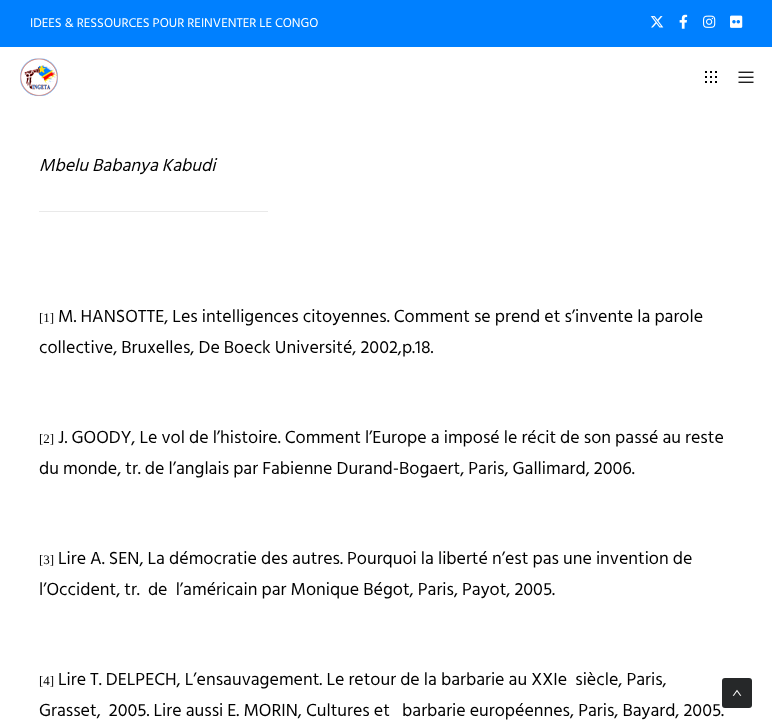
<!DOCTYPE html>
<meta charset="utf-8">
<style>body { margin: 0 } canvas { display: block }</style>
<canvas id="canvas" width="772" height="728"></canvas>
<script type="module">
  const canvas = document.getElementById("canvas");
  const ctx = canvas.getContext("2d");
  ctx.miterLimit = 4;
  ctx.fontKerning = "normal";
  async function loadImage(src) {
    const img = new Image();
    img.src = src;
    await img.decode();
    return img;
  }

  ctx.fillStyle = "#ffffff";
  ctx.fillRect(0, 0, 772, 728);
  ctx.fillStyle = "#0080ff";
  ctx.fillRect(0, 0, 772, 47);
  ctx.font = "13px Hind Siliguri";
  ctx.fillStyle = "#ffffff";
  ctx.fillText("IDEES & RESSOURCES POUR REINVENTER LE CONGO", 30, 27);
  ctx.drawImage(await loadImage("img1.png"), 650, 16, 14, 12);
  ctx.drawImage(await loadImage("img2.png"), 679, 14, 9, 15);
  ctx.drawImage(await loadImage("img3.png"), 703, 15, 13, 13);
  ctx.drawImage(await loadImage("img4.png"), 730, 15, 13, 13);
  ctx.drawImage(await loadImage("img5.png"), 20, 58, 38, 39);
  ctx.drawImage(await loadImage("img6.png"), 705, 71, 12, 12);
  ctx.drawImage(await loadImage("img7.png"), 738, 71, 16, 12);
  ctx.font = "italic 18px Hind Siliguri";
  ctx.fillStyle = "#000000";
  ctx.fillText("Mbelu Babanya Kabudi", 39, 171);
  ctx.fillStyle = "#e9e9e9";
  ctx.fillRect(39, 211, 229, 1);
  ctx.font = "13px Liberation Serif";
  ctx.fillStyle = "#000000";
  ctx.fillText("[1]", 39, 322);
  ctx.font = "18px Hind Siliguri";
  ctx.fillText("M. HANSOTTE, Les intelligences citoyennes. Comment se prend et s’invente la parole", 58, 322);
  ctx.fillText("collective, Bruxelles, De Boeck Université, 2002,p.18.", 39, 353);
  ctx.font = "13px Liberation Serif";
  ctx.fillText("[2]", 39, 443);
  ctx.font = "18px Hind Siliguri";
  ctx.fillText("J. GOODY, Le vol de l’histoire. Comment l’Europe a imposé le récit de son passé au reste", 58, 443);
  ctx.fillText("du monde, tr. de l’anglais par Fabienne Durand-Bogaert, Paris, Gallimard, 2006.", 39, 474);
  ctx.font = "13px Liberation Serif";
  ctx.fillText("[3]", 39, 564);
  ctx.font = "18px Hind Siliguri";
  ctx.fillText("Lire A. SEN, La démocratie des autres. Pourquoi la liberté n’est pas une invention de", 58, 564);
  ctx.fillText("l’Occident, tr.  de  l’américain par Monique Bégot, Paris, Payot, 2005.", 39, 595);
  ctx.font = "13px Liberation Serif";
  ctx.fillText("[4]", 39, 685);
  ctx.font = "18px Hind Siliguri";
  ctx.fillText("Lire T. DELPECH, L’ensauvagement. Le retour de la barbarie au XXIe  siècle, Paris,", 58, 685);
  ctx.fillText("Grasset,  2005. Lire aussi E. MORIN, Cultures et   barbarie européennes, Paris, Bayard, 2005.", 39, 716);
  ctx.fillStyle = "#262829";
  ctx.beginPath();
  ctx.roundRect(722, 678, 30, 30, 3);
  ctx.fill();
  ctx.drawImage(await loadImage("img8.png"), 732, 689, 10, 7);
</script>
